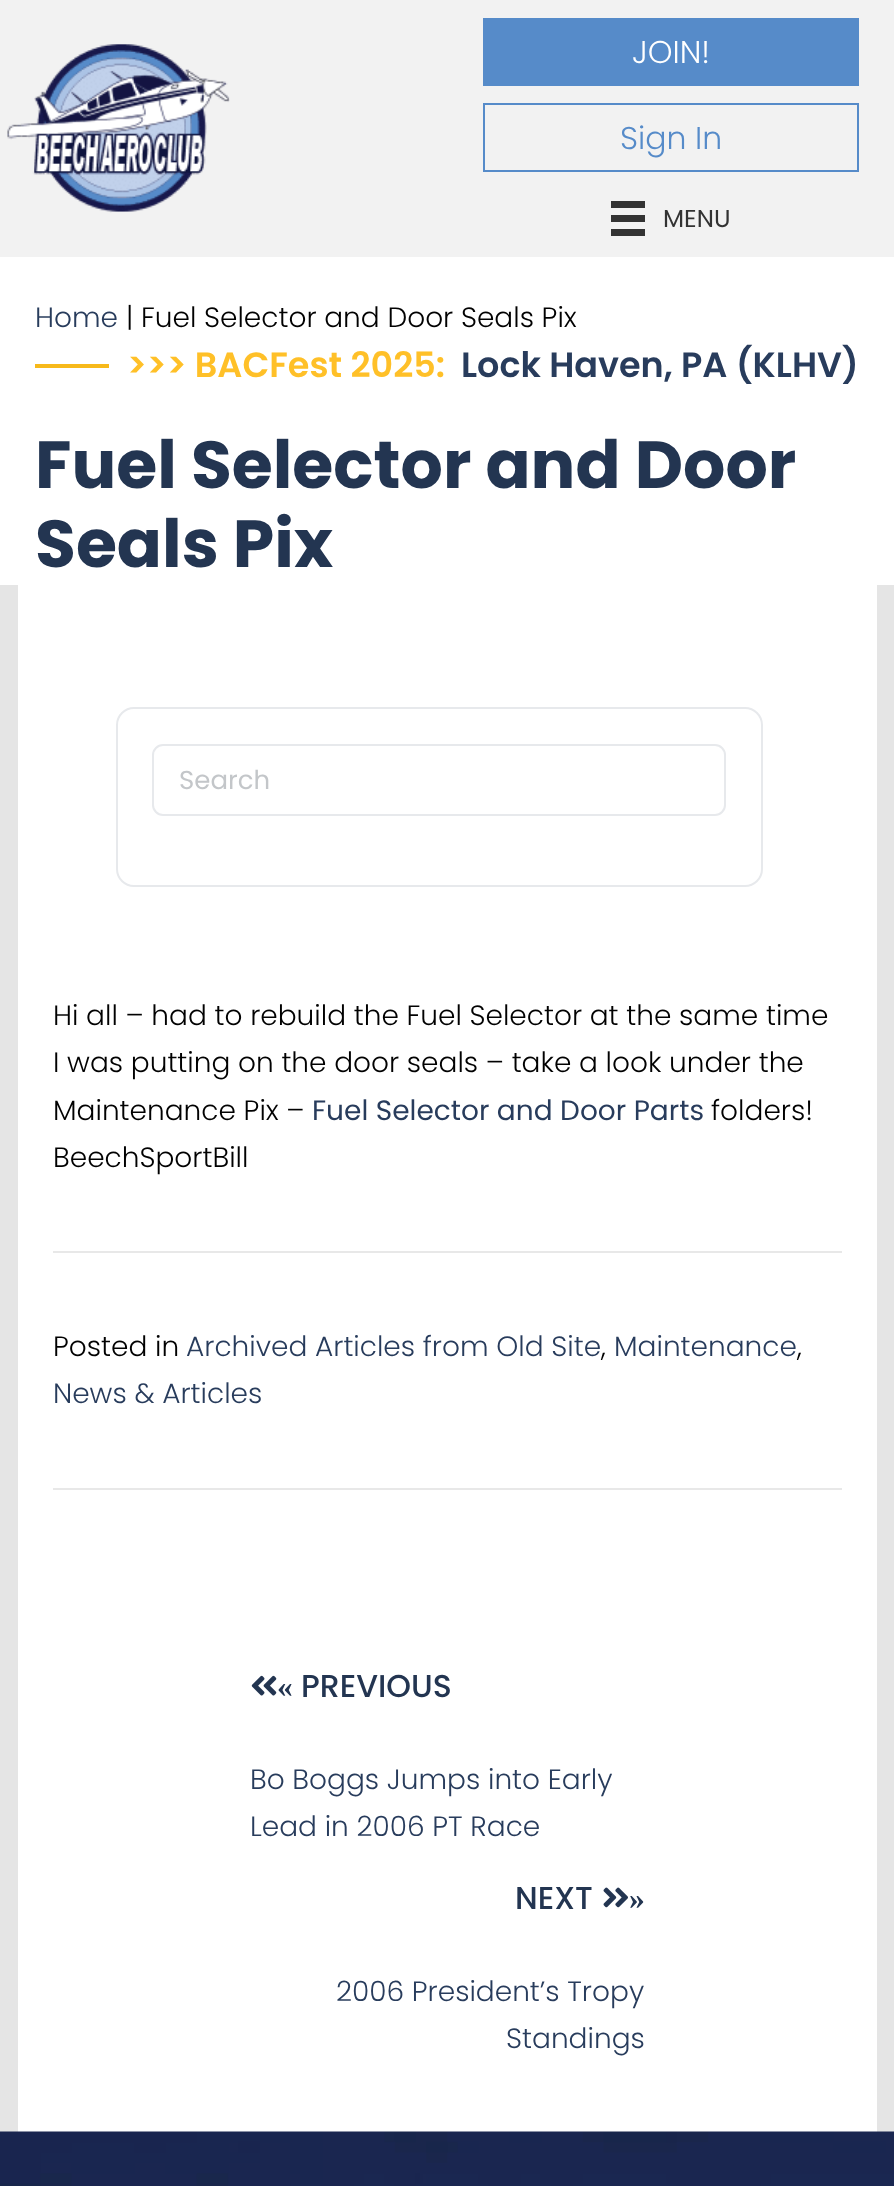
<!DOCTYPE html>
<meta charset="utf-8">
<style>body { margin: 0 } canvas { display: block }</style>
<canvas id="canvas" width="894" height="2186"></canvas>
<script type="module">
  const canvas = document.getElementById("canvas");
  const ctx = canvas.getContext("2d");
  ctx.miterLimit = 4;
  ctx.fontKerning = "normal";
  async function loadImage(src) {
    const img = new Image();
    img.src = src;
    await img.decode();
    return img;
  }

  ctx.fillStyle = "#e5e5e5";
  ctx.fillRect(0, 0, 894, 2186);
  ctx.fillStyle = "#f2f2f2";
  ctx.fillRect(0, 0, 894, 257);
  ctx.fillStyle = "#ffffff";
  ctx.fillRect(0, 257, 894, 328);
  ctx.drawImage(await loadImage("img1.png"), 7, 44, 223, 169);
  ctx.fillStyle = "#568bc9";
  ctx.fillRect(483, 18, 376, 68);
  ctx.font = "300 31.5px Poppins";
  ctx.fillStyle = "#ffffff";
  ctx.fillText("JOIN!", 632, 63);
  ctx.strokeStyle = "#568bc9";
  ctx.lineWidth = 2;
  ctx.strokeRect(484, 104, 374, 67);
  ctx.fillStyle = "#568bc9";
  ctx.fillText("Sign In", 620, 149);
  ctx.fillStyle = "#333333";
  ctx.fillRect(611, 201, 34, 7);
  ctx.fillRect(611, 215, 34, 7);
  ctx.fillRect(611, 229, 34, 7);
  ctx.font = "24.5px Poppins";
  ctx.fillText("MENU", 663, 227);
  ctx.font = "300 28px Poppins";
  ctx.fillStyle = "#283c5c";
  ctx.fillText("Home", 35, 327);
  ctx.fillStyle = "#010101";
  ctx.fillText("| Fuel Selector and Door Seals Pix", 126, 327);
  ctx.fillStyle = "#f7b91a";
  ctx.fillRect(35, 364, 74, 4);
  ctx.font = "600 35px Poppins";
  ctx.fillStyle = "#ffc028";
  ctx.fillText(">>> BACFest 2025:", 127, 377);
  ctx.fillStyle = "#283c5c";
  ctx.fillText("Lock Haven, PA (KLHV)", 461, 377);
  ctx.font = "bold 66.5px Poppins";
  ctx.fillStyle = "#233551";
  ctx.fillText("Fuel Selector and Door", 35, 488);
  ctx.fillText("Seals Pix", 35, 567);
  ctx.fillStyle = "#ffffff";
  ctx.fillRect(18, 585, 859, 1547);
  ctx.beginPath();
  ctx.roundRect(117, 708, 645, 178, 17);
  ctx.strokeStyle = "#e7e9ec";
  ctx.stroke();
  ctx.beginPath();
  ctx.roundRect(153, 745, 572, 70, 10);
  ctx.stroke();
  ctx.font = "26px Poppins";
  ctx.fillStyle = "#c3c6c9";
  ctx.fillText("Search", 179, 789);
  ctx.font = "300 28px Poppins";
  ctx.fillStyle = "#010101";
  ctx.fillText("Hi all – had to rebuild the Fuel Selector at the same time", 53, 1025);
  ctx.fillText("I was putting on the door seals – take a look under the", 53, 1072);
  ctx.fillText("Maintenance Pix –", 53, 1120);
  ctx.font = "28px Poppins";
  ctx.fillStyle = "#283c5c";
  ctx.fillText("Fuel Selector and Door Parts", 312, 1120);
  ctx.font = "300 28px Poppins";
  ctx.fillStyle = "#010101";
  ctx.fillText("folders!", 711, 1120);
  ctx.fillText("BeechSportBill", 53, 1167);
  ctx.fillStyle = "#e8e8e8";
  ctx.fillRect(53, 1251, 789, 2);
  ctx.fillStyle = "#010101";
  ctx.fillText("Posted in", 53, 1356);
  ctx.fillStyle = "#283c5c";
  ctx.fillText("Archived Articles from Old Site", 186, 1356);
  ctx.fillStyle = "#010101";
  ctx.fillText(",", 601, 1356);
  ctx.fillStyle = "#283c5c";
  ctx.fillText("Maintenance", 614, 1356);
  ctx.fillStyle = "#010101";
  ctx.fillText(",", 797, 1356);
  ctx.fillStyle = "#283c5c";
  ctx.fillText("News & Articles", 53, 1403);
  ctx.fillStyle = "#e8e8e8";
  ctx.fillRect(53, 1488, 789, 2);
  ctx.drawImage(await loadImage("img2.png"), 251, 1675, 26, 21);
  ctx.font = "bold 31.5px Liberation Serif";
  ctx.fillStyle = "#233551";
  ctx.fillText("«", 277, 1697);
  ctx.font = "500 31.5px Poppins";
  ctx.fillText("PREVIOUS", 301, 1697);
  ctx.font = "300 28px Poppins";
  ctx.fillStyle = "#283c5c";
  ctx.fillText("Bo Boggs Jumps into Early", 250, 1789);
  ctx.fillText("Lead in 2006 PT Race", 250, 1836);
  ctx.font = "500 31.5px Poppins";
  ctx.fillStyle = "#233551";
  ctx.fillText("NEXT", 515, 1909);
  ctx.drawImage(await loadImage("img3.png"), 603, 1887, 25, 21);
  ctx.font = "bold 31.5px Liberation Serif";
  ctx.fillText("»", 629, 1909);
  ctx.font = "300 28px Poppins";
  ctx.fillStyle = "#283c5c";
  ctx.fillText("2006 President’s Tropy", 336, 2001);
  ctx.fillText("Standings", 506, 2048);
  ctx.drawImage(await loadImage("img4.png"), 0, 2131, 894, 55);
</script>
